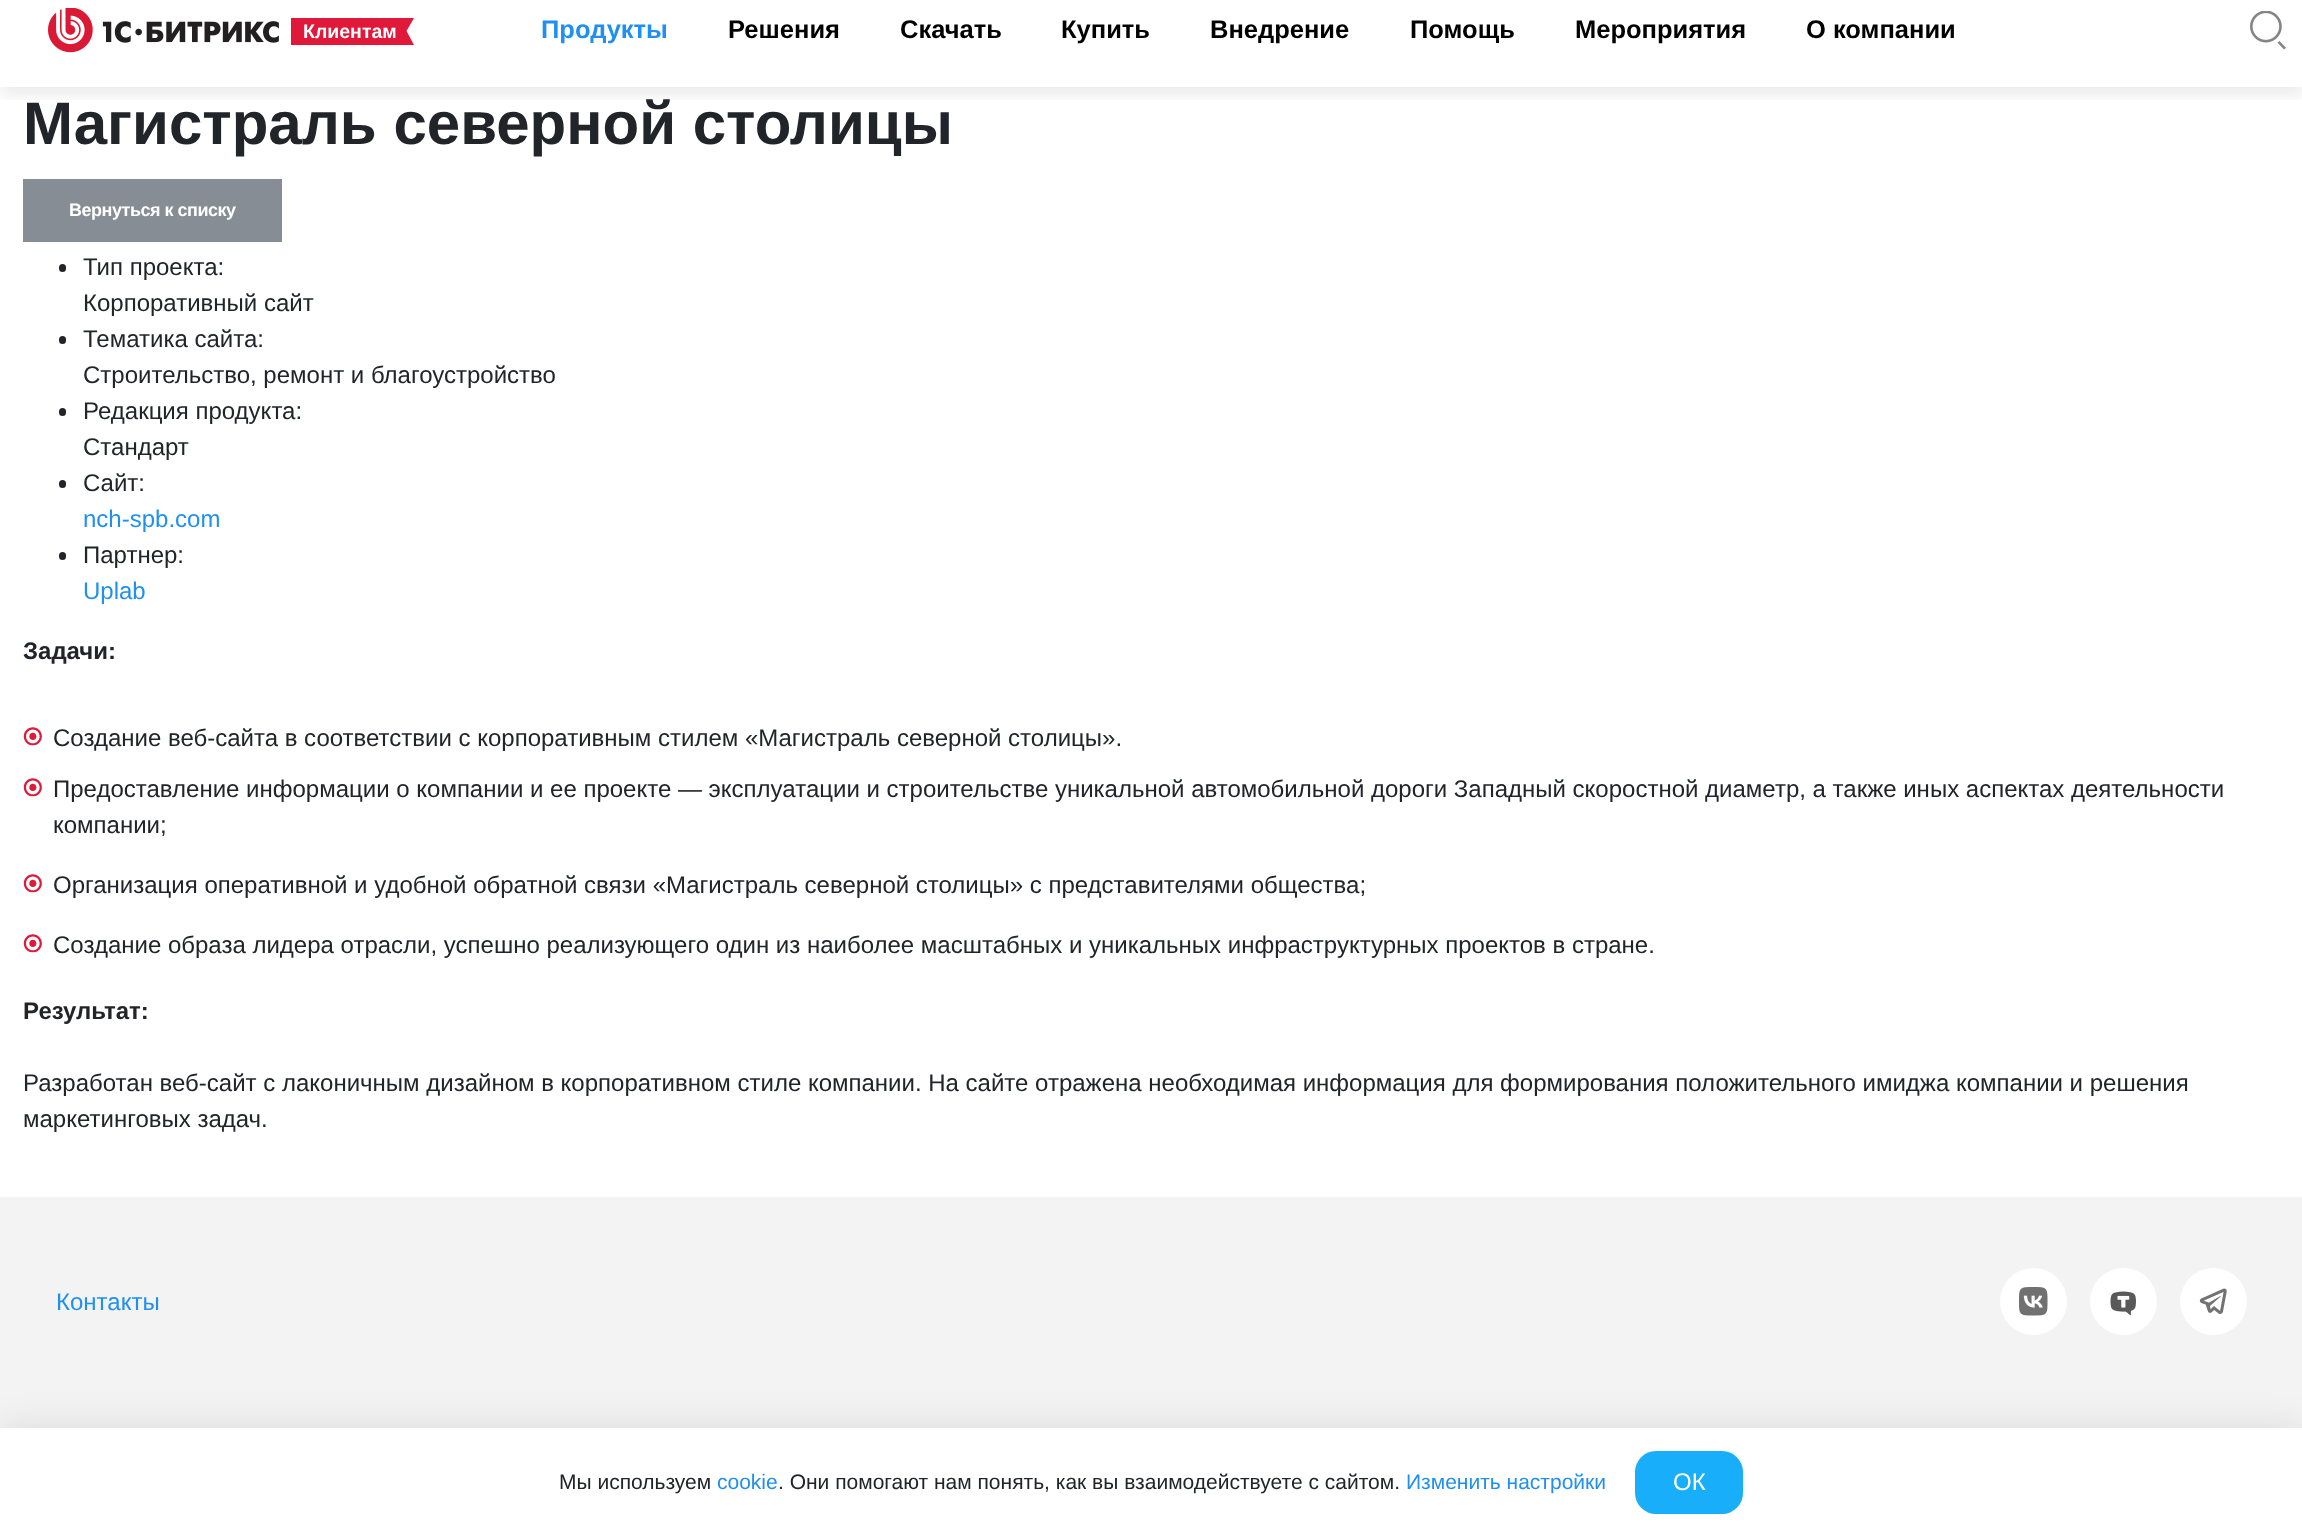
<!DOCTYPE html>
<meta charset="utf-8">
<style>body { margin: 0 } canvas { display: block }</style>
<canvas id="canvas" width="2302" height="1535"></canvas>
<script type="module">
  const canvas = document.getElementById("canvas");
  const ctx = canvas.getContext("2d");
  ctx.miterLimit = 4;
  ctx.fontKerning = "normal";
  async function loadImage(src) {
    const img = new Image();
    img.src = src;
    await img.decode();
    return img;
  }

  ctx.fillStyle = "#ffffff";
  ctx.fillRect(0, 0, 2302, 1535);
  ctx.save();
  ctx.beginPath();
  ctx.rect(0, 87, 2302, 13);
  ctx.clip();
  ctx.fillStyle = "rgba(0, 0, 0, 0.08)";
  ctx.filter = "blur(7.5px)";
  ctx.beginPath();
  ctx.rect(0, -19, 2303, 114);
  ctx.fill();
  ctx.filter = "none";
  ctx.restore();
  ctx.drawImage(await loadImage("img1.png"), 48, 8, 231, 45);
  ctx.drawImage(await loadImage("img2.png"), 291, 18, 123, 27);
  ctx.font = "bold 19.5px Liberation Sans";
  ctx.fillText("Клиентам", 303, 38);
  ctx.font = "bold 25.5px Liberation Sans";
  ctx.fillStyle = "#1f90ef";
  ctx.fillText("Продукты", 541, 38);
  ctx.fillStyle = "#000000";
  ctx.fillText("Решения", 728, 38);
  ctx.fillText("Скачать", 900, 38);
  ctx.fillText("Купить", 1061, 38);
  ctx.fillText("Внедрение", 1210, 38);
  ctx.fillText("Помощь", 1410, 38);
  ctx.fillText("Мероприятия", 1575, 38);
  ctx.fillText("О компании", 1806, 38);
  ctx.drawImage(await loadImage("img3.png"), 2250, 11, 36, 39);
  ctx.font = "bold 60px Liberation Sans";
  ctx.fillStyle = "#212529";
  ctx.fillText("Магистраль северной столицы", 23, 144);
  ctx.fillStyle = "#868d95";
  ctx.fillRect(23, 179, 259, 63);
  ctx.letterSpacing = "-0.5px";
  ctx.font = "bold 18px Liberation Sans";
  ctx.fillStyle = "#ffffff";
  ctx.fillText("Вернуться к списку", 69, 216);
  ctx.fillStyle = "#212529";
  ctx.beginPath();
  ctx.roundRect(59, 264, 7, 8, 3.5);
  ctx.fill();
  ctx.letterSpacing = "0px";
  ctx.font = "24px Liberation Sans";
  ctx.fillText("Тип проекта:", 83, 275);
  ctx.fillText("Корпоративный сайт", 83, 311);
  ctx.beginPath();
  ctx.roundRect(59, 336, 7, 8, 3.5);
  ctx.fill();
  ctx.fillText("Тематика сайта:", 83, 347);
  ctx.fillText("Строительство, ремонт и благоустройство", 83, 383);
  ctx.beginPath();
  ctx.roundRect(59, 408, 7, 8, 3.5);
  ctx.fill();
  ctx.fillText("Редакция продукта:", 83, 419);
  ctx.fillText("Стандарт", 83, 455);
  ctx.beginPath();
  ctx.roundRect(59, 480, 7, 8, 3.5);
  ctx.fill();
  ctx.fillText("Сайт:", 83, 491);
  ctx.fillStyle = "#1f90ef";
  ctx.fillText("nch-spb.com", 83, 527);
  ctx.fillStyle = "#212529";
  ctx.beginPath();
  ctx.roundRect(59, 552, 7, 8, 3.5);
  ctx.fill();
  ctx.fillText("Партнер:", 83, 563);
  ctx.fillStyle = "#1f90ef";
  ctx.fillText("Uplab", 83, 599);
  ctx.font = "bold 24px Liberation Sans";
  ctx.fillStyle = "#212529";
  ctx.fillText("Задачи:", 23, 659);
  ctx.drawImage(await loadImage("img4.png"), 23, 727, 19, 19);
  ctx.font = "24px Liberation Sans";
  ctx.fillText("Создание веб-сайта в соответствии с корпоративным стилем «Магистраль северной столицы».", 53, 746);
  ctx.drawImage(await loadImage("img4.png"), 23, 778, 19, 19);
  ctx.fillText("Предоставление информации о компании и ее проекте — эксплуатации и строительстве уникальной автомобильной дороги Западный скоростной диаметр, а также иных аспектах деятельности", 53, 797);
  ctx.fillText("компании;", 53, 833);
  ctx.drawImage(await loadImage("img4.png"), 23, 874, 19, 19);
  ctx.fillText("Организация оперативной и удобной обратной связи «Магистраль северной столицы» с представителями общества;", 53, 893);
  ctx.drawImage(await loadImage("img4.png"), 23, 934, 19, 19);
  ctx.fillText("Создание образа лидера отрасли, успешно реализующего один из наиболее масштабных и уникальных инфраструктурных проектов в стране.", 53, 953);
  ctx.font = "bold 24px Liberation Sans";
  ctx.fillText("Результат:", 23, 1019);
  ctx.font = "24px Liberation Sans";
  ctx.fillText("Разработан веб-сайт с лаконичным дизайном в корпоративном стиле компании. На сайте отражена необходимая информация для формирования положительного имиджа компании и решения", 23, 1091);
  ctx.fillText("маркетинговых задач.", 23, 1127);
  ctx.fillStyle = "#f3f3f3";
  ctx.fillRect(0, 1197, 2302, 231);
  ctx.fillStyle = "#1f90ef";
  ctx.fillText("Контакты", 56, 1310);
  ctx.fillStyle = "#ffffff";
  ctx.beginPath();
  ctx.arc(2033.5, 1301.5, 33.5, 0, Math.PI * 2);
  ctx.fill();
  ctx.drawImage(await loadImage("img5.png"), 2019, 1287, 29, 29);
  ctx.beginPath();
  ctx.arc(2123.5, 1301.5, 33.5, 0, Math.PI * 2);
  ctx.fill();
  ctx.drawImage(await loadImage("img6.png"), 2110, 1291, 26, 25);
  ctx.beginPath();
  ctx.arc(2213.5, 1301.5, 33.5, 0, Math.PI * 2);
  ctx.fill();
  ctx.drawImage(await loadImage("img7.png"), 2199, 1288, 28, 26);
  ctx.fillStyle = "rgba(0, 0, 0, 0.1)";
  ctx.filter = "blur(18px)";
  ctx.beginPath();
  ctx.rect(0, 1428, 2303, 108);
  ctx.fill();
  ctx.filter = "none";
  ctx.fillStyle = "#ffffff";
  ctx.fillRect(0, 1428, 2302, 107);
  ctx.font = "21px Liberation Sans";
  ctx.fillStyle = "#212529";
  ctx.fillText("Мы используем", 559, 1489);
  ctx.fillStyle = "#1f90ef";
  ctx.fillText("cookie", 717, 1489);
  ctx.fillStyle = "#212529";
  ctx.fillText(". Они помогают нам понять, как вы взаимодействуете с сайтом.", 778, 1489);
  ctx.fillStyle = "#1f90ef";
  ctx.fillText("Изменить настройки", 1406, 1489);
  ctx.fillStyle = "#19aef9";
  ctx.beginPath();
  ctx.roundRect(1635, 1451, 108, 63, 21);
  ctx.fill();
  ctx.font = "24px Liberation Sans";
  ctx.fillStyle = "#ffffff";
  ctx.fillText("ОК", 1673, 1490);
</script>
